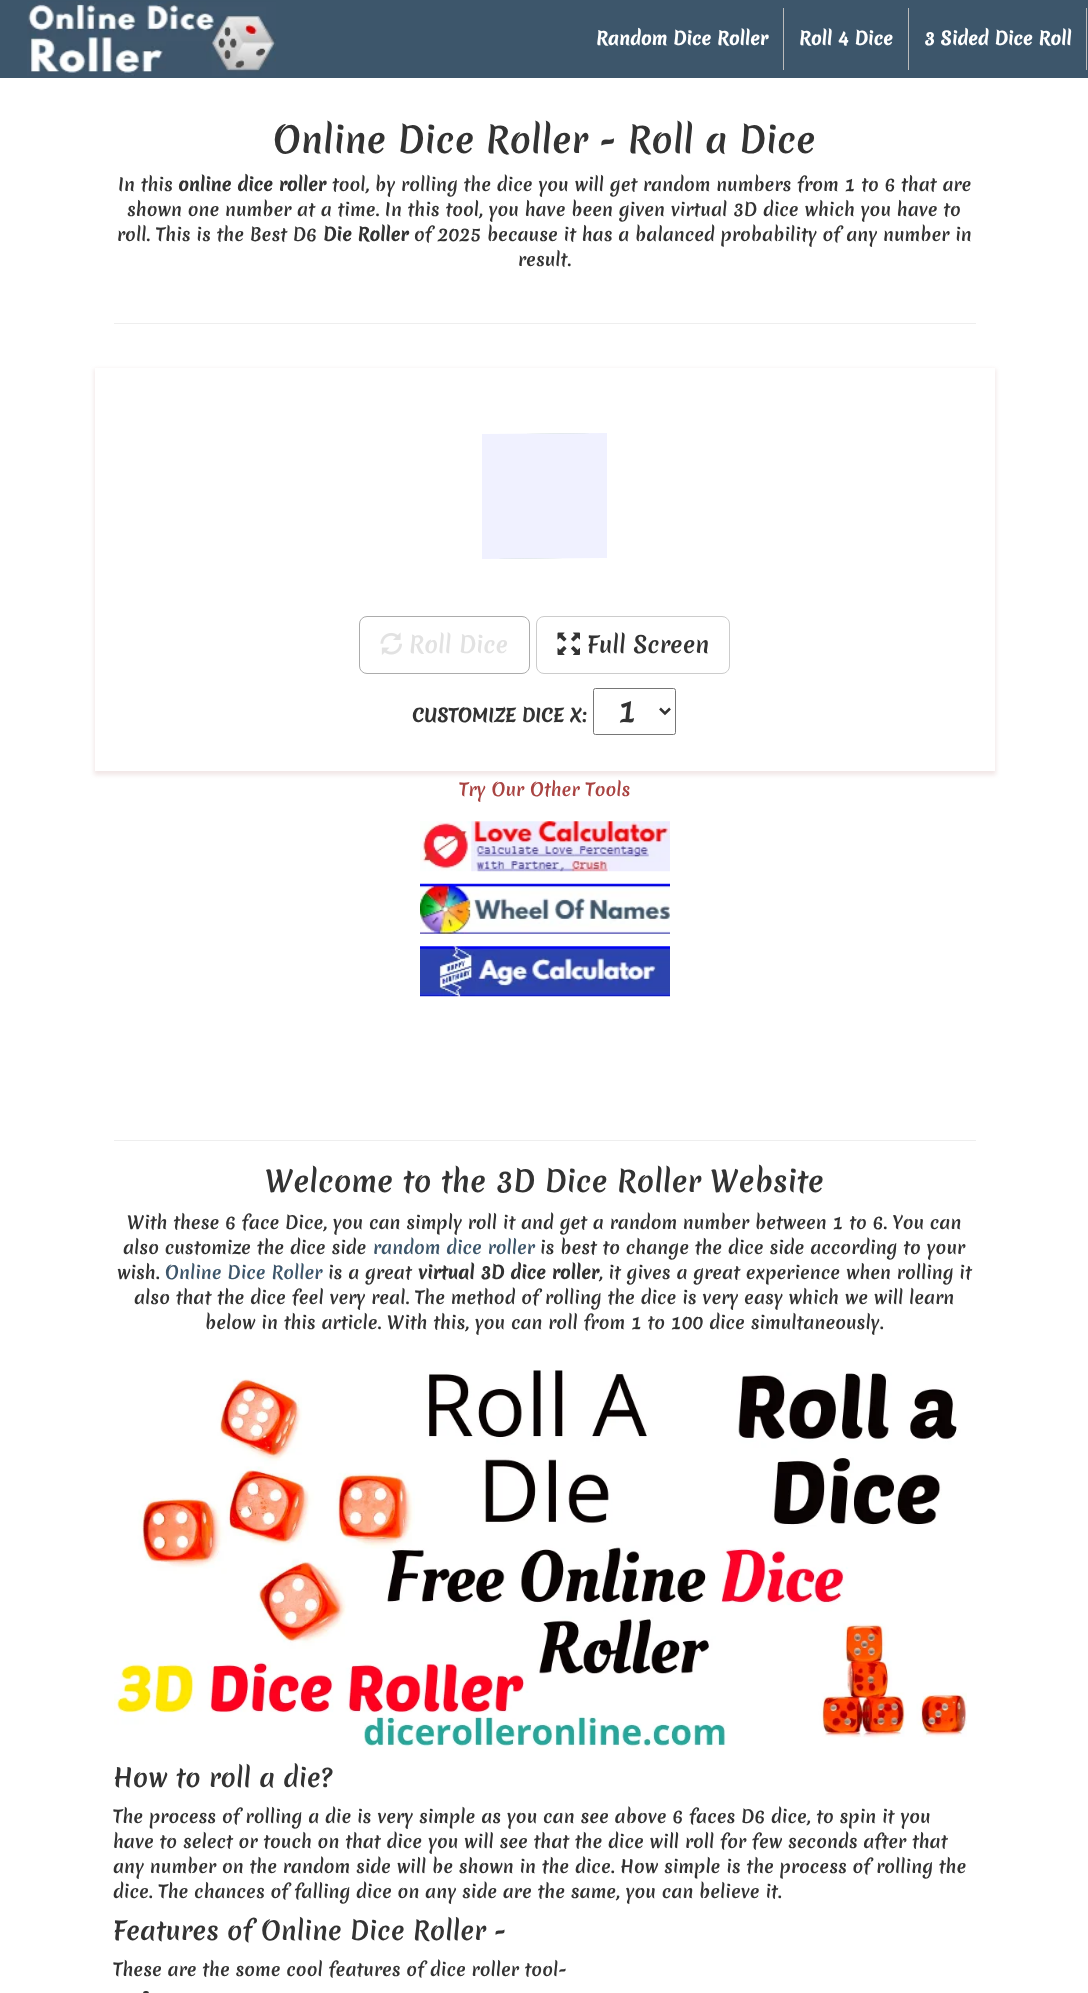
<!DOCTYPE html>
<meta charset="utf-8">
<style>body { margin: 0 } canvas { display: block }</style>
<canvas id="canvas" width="1088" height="1993"></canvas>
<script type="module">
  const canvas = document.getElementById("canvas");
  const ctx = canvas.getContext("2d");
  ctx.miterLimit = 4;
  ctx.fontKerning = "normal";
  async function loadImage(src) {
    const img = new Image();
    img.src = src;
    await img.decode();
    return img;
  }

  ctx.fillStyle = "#ffffff";
  ctx.fillRect(0, 0, 1088, 1993);
  ctx.fillStyle = "#3d566b";
  ctx.fillRect(0, 0, 1088, 78);
  ctx.drawImage(await loadImage("img1.png"), 27, 1, 249, 75);
  ctx.fillStyle = "#bbbbbb";
  ctx.fillRect(783, 8, 1, 62);
  ctx.font = "bold 17.5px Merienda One";
  ctx.fillStyle = "#ffffff";
  ctx.fillText("Random Dice Roller", 596, 45);
  ctx.fillStyle = "#bbbbbb";
  ctx.fillRect(908, 8, 1, 62);
  ctx.fillStyle = "#ffffff";
  ctx.fillText("Roll 4 Dice", 799, 45);
  ctx.fillStyle = "#bbbbbb";
  ctx.fillRect(1086, 8, 1, 62);
  ctx.fillStyle = "#ffffff";
  ctx.fillText("3 Sided Dice Roll", 924, 45);
  ctx.font = "35px Merienda One";
  ctx.fillStyle = "#333333";
  ctx.fillText("Online Dice Roller - Roll a Dice", 273, 153);
  ctx.font = "17.5px Merienda One";
  ctx.fillText("In this", 118, 191);
  ctx.font = "bold 17.5px Merienda One";
  ctx.fillText("online dice roller", 178, 191);
  ctx.font = "17.5px Merienda One";
  ctx.fillText("tool, by rolling the dice you will get random numbers from 1 to 6 that are", 332, 191);
  ctx.fillText("shown one number at a time. In this tool, you have been given virtual 3D dice which you have to", 127, 216);
  ctx.fillText("roll. This is the Best D6", 117, 241);
  ctx.font = "bold 17.5px Merienda One";
  ctx.fillText("Die Roller", 323, 241);
  ctx.font = "17.5px Merienda One";
  ctx.fillText("of 2025 because it has a balanced probability of any number in", 414, 241);
  ctx.fillText("result.", 518, 266);
  ctx.fillStyle = "#eeeeee";
  ctx.fillRect(114, 323, 862, 1);
  ctx.save();
  ctx.beginPath();
  ctx.moveTo(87, 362);
  ctx.lineTo(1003, 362);
  ctx.lineTo(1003, 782);
  ctx.lineTo(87, 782);
  ctx.closePath();
  ctx.moveTo(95, 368);
  ctx.lineTo(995, 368);
  ctx.lineTo(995, 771);
  ctx.lineTo(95, 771);
  ctx.closePath();
  ctx.clip("evenodd");
  ctx.fillStyle = "#f1e7e7";
  ctx.filter = "blur(2px)";
  ctx.beginPath();
  ctx.rect(94, 369, 902, 406);
  ctx.fill();
  ctx.filter = "none";
  ctx.restore();
  ctx.beginPath();
  ctx.moveTo(504.5, 435.5);
  ctx.lineTo(584, 434.5);
  ctx.bezierCurveTo(596, 434.5, 605.5, 444, 605.5, 455.5);
  ctx.lineTo(605.5, 535.5);
  ctx.bezierCurveTo(605.5, 547, 596, 556.5, 584, 556.5);
  ctx.lineTo(504.5, 557.5);
  ctx.bezierCurveTo(493, 557.5, 483.5, 548, 483.5, 536.5);
  ctx.lineTo(483.5, 456.5);
  ctx.bezierCurveTo(483.5, 445, 493, 435.5, 504.5, 435.5);
  ctx.closePath();
  ctx.strokeStyle = "#bed1be";
  ctx.lineWidth = 2.5;
  ctx.stroke();
  ctx.beginPath();
  ctx.moveTo(504.5, 557.5);
  ctx.lineTo(584, 556.5);
  ctx.bezierCurveTo(596, 556.5, 605.5, 547, 605.5, 535.5);
  ctx.lineTo(605.5, 455.5);
  ctx.bezierCurveTo(605.5, 444, 596, 434.5, 584, 434.5);
  ctx.lineTo(504.5, 435.5);
  ctx.bezierCurveTo(493, 435.5, 483.5, 445, 483.5, 456.5);
  ctx.lineTo(483.5, 536.5);
  ctx.bezierCurveTo(483.5, 548, 493, 557.5, 504.5, 557.5);
  ctx.closePath();
  ctx.stroke();
  ctx.fillStyle = "#f0f1ff";
  ctx.beginPath();
  ctx.moveTo(482, 559);
  ctx.lineTo(607, 558);
  ctx.lineTo(607, 433);
  ctx.lineTo(482, 434);
  ctx.closePath();
  ctx.fill();
  ctx.beginPath();
  ctx.roundRect(359.5, 616.5, 170, 57, 7.5);
  ctx.strokeStyle = "#acacac";
  ctx.lineWidth = 1;
  ctx.stroke();
  ctx.drawImage(await loadImage("img2.png"), 380, 632, 22, 23);
  ctx.font = "22.5px Merienda One";
  ctx.fillStyle = "#e2e2e2";
  ctx.fillText("Roll Dice", 409, 653);
  ctx.beginPath();
  ctx.roundRect(536.5, 616.5, 193, 57, 7.5);
  ctx.strokeStyle = "#cccccc";
  ctx.stroke();
  ctx.drawImage(await loadImage("img3.png"), 557, 632, 23, 23);
  ctx.fillStyle = "#333333";
  ctx.fillText("Full Screen", 587, 653);
  ctx.font = "bold 17.5px Merienda One";
  ctx.fillText("CUSTOMIZE DICE X:", 412, 722);
  ctx.beginPath();
  ctx.roundRect(593.5, 688.5, 82, 46, 2);
  ctx.strokeStyle = "#767676";
  ctx.stroke();
  ctx.beginPath();
  ctx.moveTo(660, 708.5);
  ctx.lineTo(665, 713.5);
  ctx.lineTo(670, 708.5);
  ctx.strokeStyle = "#333333";
  ctx.lineWidth = 2.5;
  ctx.stroke();
  ctx.font = "30px Merienda One";
  ctx.fillText("1", 618, 722);
  ctx.font = "17.5px Merienda One";
  ctx.fillStyle = "#a94442";
  ctx.fillText("Try Our Other Tools", 459, 796);
  ctx.drawImage(await loadImage("img4.png"), 420, 821, 250, 51);
  ctx.drawImage(await loadImage("img5.png"), 420, 883, 250, 51);
  ctx.drawImage(await loadImage("img6.png"), 420, 946, 250, 51);
  ctx.fillStyle = "#eeeeee";
  ctx.fillRect(114, 1140, 862, 1);
  ctx.font = "28.75px Merienda One";
  ctx.fillStyle = "#333333";
  ctx.fillText("Welcome to the 3D Dice Roller Website", 265, 1192);
  ctx.font = "17.5px Merienda One";
  ctx.fillText("With these 6 face Dice, you can simply roll it and get a random number between 1 to 6. You can", 127, 1229);
  ctx.fillText("also customize the dice side", 123, 1254);
  ctx.fillStyle = "#3d566b";
  ctx.fillText("random dice roller", 373, 1254);
  ctx.fillStyle = "#333333";
  ctx.fillText("is best to change the dice side according to your", 540, 1254);
  ctx.fillText("wish.", 117, 1279);
  ctx.fillStyle = "#3d566b";
  ctx.fillText("Online Dice Roller", 165, 1279);
  ctx.fillStyle = "#333333";
  ctx.fillText("is a great", 328, 1279);
  ctx.font = "bold 17.5px Merienda One";
  ctx.fillText("virtual 3D dice roller", 418, 1279);
  ctx.font = "17.5px Merienda One";
  ctx.fillText(", it gives a great experience when rolling it", 599, 1279);
  ctx.fillText("also that the dice feel very real. The method of rolling the dice is very easy which we will learn", 134, 1304);
  ctx.fillText("below in this article. With this, you can roll from 1 to 100 dice simultaneously.", 205, 1329);
  ctx.drawImage(await loadImage("img7.png"), 114, 1370, 853, 380);
  ctx.font = "25px Merienda One";
  ctx.fillText("How to roll a die?", 113, 1787);
  ctx.font = "17.5px Merienda One";
  ctx.fillText("The process of rolling a die is very simple as you can see above 6 faces D6 dice, to spin it you", 113, 1823);
  ctx.fillText("have to select or touch on that dice you will see that the dice will roll for few seconds after that", 113, 1848);
  ctx.fillText("any number on the random side will be shown in the dice. How simple is the process of rolling the", 113, 1873);
  ctx.fillText("dice. The chances of falling dice on any side are the same, you can believe it.", 113, 1898);
  ctx.font = "25px Merienda One";
  ctx.fillText("Features of Online Dice Roller -", 113, 1940);
  ctx.font = "17.5px Merienda One";
  ctx.fillText("These are the some cool features of dice roller tool-", 113, 1976);
  ctx.beginPath();
  ctx.roundRect(143, 1991, 6, 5, 3);
  ctx.fill();
</script>
